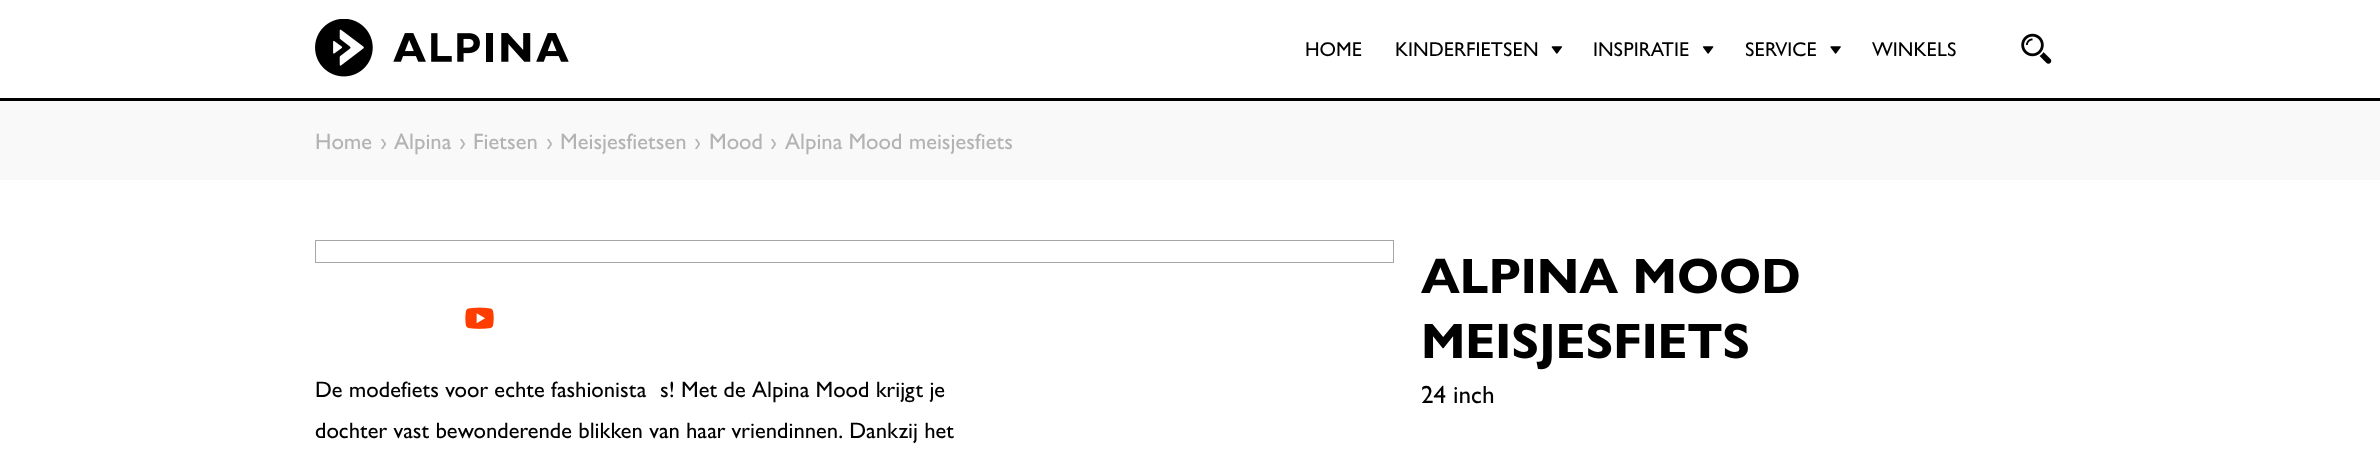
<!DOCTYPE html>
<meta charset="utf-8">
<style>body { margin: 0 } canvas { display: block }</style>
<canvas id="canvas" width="2380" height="454"></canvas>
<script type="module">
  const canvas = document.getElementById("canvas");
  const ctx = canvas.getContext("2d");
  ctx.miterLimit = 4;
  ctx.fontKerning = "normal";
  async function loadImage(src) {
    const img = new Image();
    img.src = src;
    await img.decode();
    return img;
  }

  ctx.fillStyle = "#ffffff";
  ctx.fillRect(0, 0, 2380, 454);
  ctx.fillStyle = "#000000";
  ctx.fillRect(0, 98, 2380, 3);
  ctx.drawImage(await loadImage("img1.png"), 315, 19, 254, 58);
  ctx.font = "500 20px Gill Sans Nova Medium";
  ctx.fillText("HOME", 1305, 56);
  ctx.fillText("KINDERFIETSEN", 1395, 56);
  ctx.drawImage(await loadImage("img2.png"), 1551, 46, 12, 8);
  ctx.fillText("INSPIRATIE", 1593, 56);
  ctx.drawImage(await loadImage("img3.png"), 1702, 46, 12, 8);
  ctx.fillText("SERVICE", 1745, 56);
  ctx.drawImage(await loadImage("img4.png"), 1830, 46, 11, 8);
  ctx.fillText("WINKELS", 1872, 56);
  ctx.drawImage(await loadImage("img5.png"), 2021, 33, 31, 31);
  ctx.fillStyle = "#f9f9f9";
  ctx.fillRect(0, 101, 2380, 79);
  ctx.font = "500 22.5px Gill Sans Nova Medium";
  ctx.fillStyle = "#b3b3b3";
  ctx.fillText("Home", 315, 149);
  ctx.fillText("›", 380, 149);
  ctx.fillText("Alpina", 394, 149);
  ctx.fillText("›", 459, 149);
  ctx.fillText("Fietsen", 473, 149);
  ctx.fillText("›", 546, 149);
  ctx.fillText("Meisjesfietsen", 560, 149);
  ctx.fillText("›", 694, 149);
  ctx.fillText("Mood", 709, 149);
  ctx.fillText("›", 770, 149);
  ctx.fillText("Alpina Mood meisjesfiets", 785, 149);
  ctx.strokeStyle = "#a6a6a6";
  ctx.strokeRect(315.5, 240.5, 1078, 22);
  ctx.drawImage(await loadImage("img6.png"), 465, 307, 29, 22);
  ctx.font = "bold 50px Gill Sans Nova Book";
  ctx.fillStyle = "#000000";
  ctx.fillText("ALPINA MOOD", 1421, 293);
  ctx.fillText("MEISJESFIETS", 1421, 358);
  ctx.font = "500 25px Gill Sans Nova Medium";
  ctx.fillText("24 inch", 1421, 403);
  ctx.font = "500 22.5px Gill Sans Nova Medium";
  ctx.fillText("De modefiets voor echte fashionista", 315, 397);
  ctx.fillText("s! Met de Alpina Mood krijgt je", 660, 397);
  ctx.fillText("dochter vast bewonderende blikken van haar vriendinnen. Dankzij het", 315, 438);
</script>
